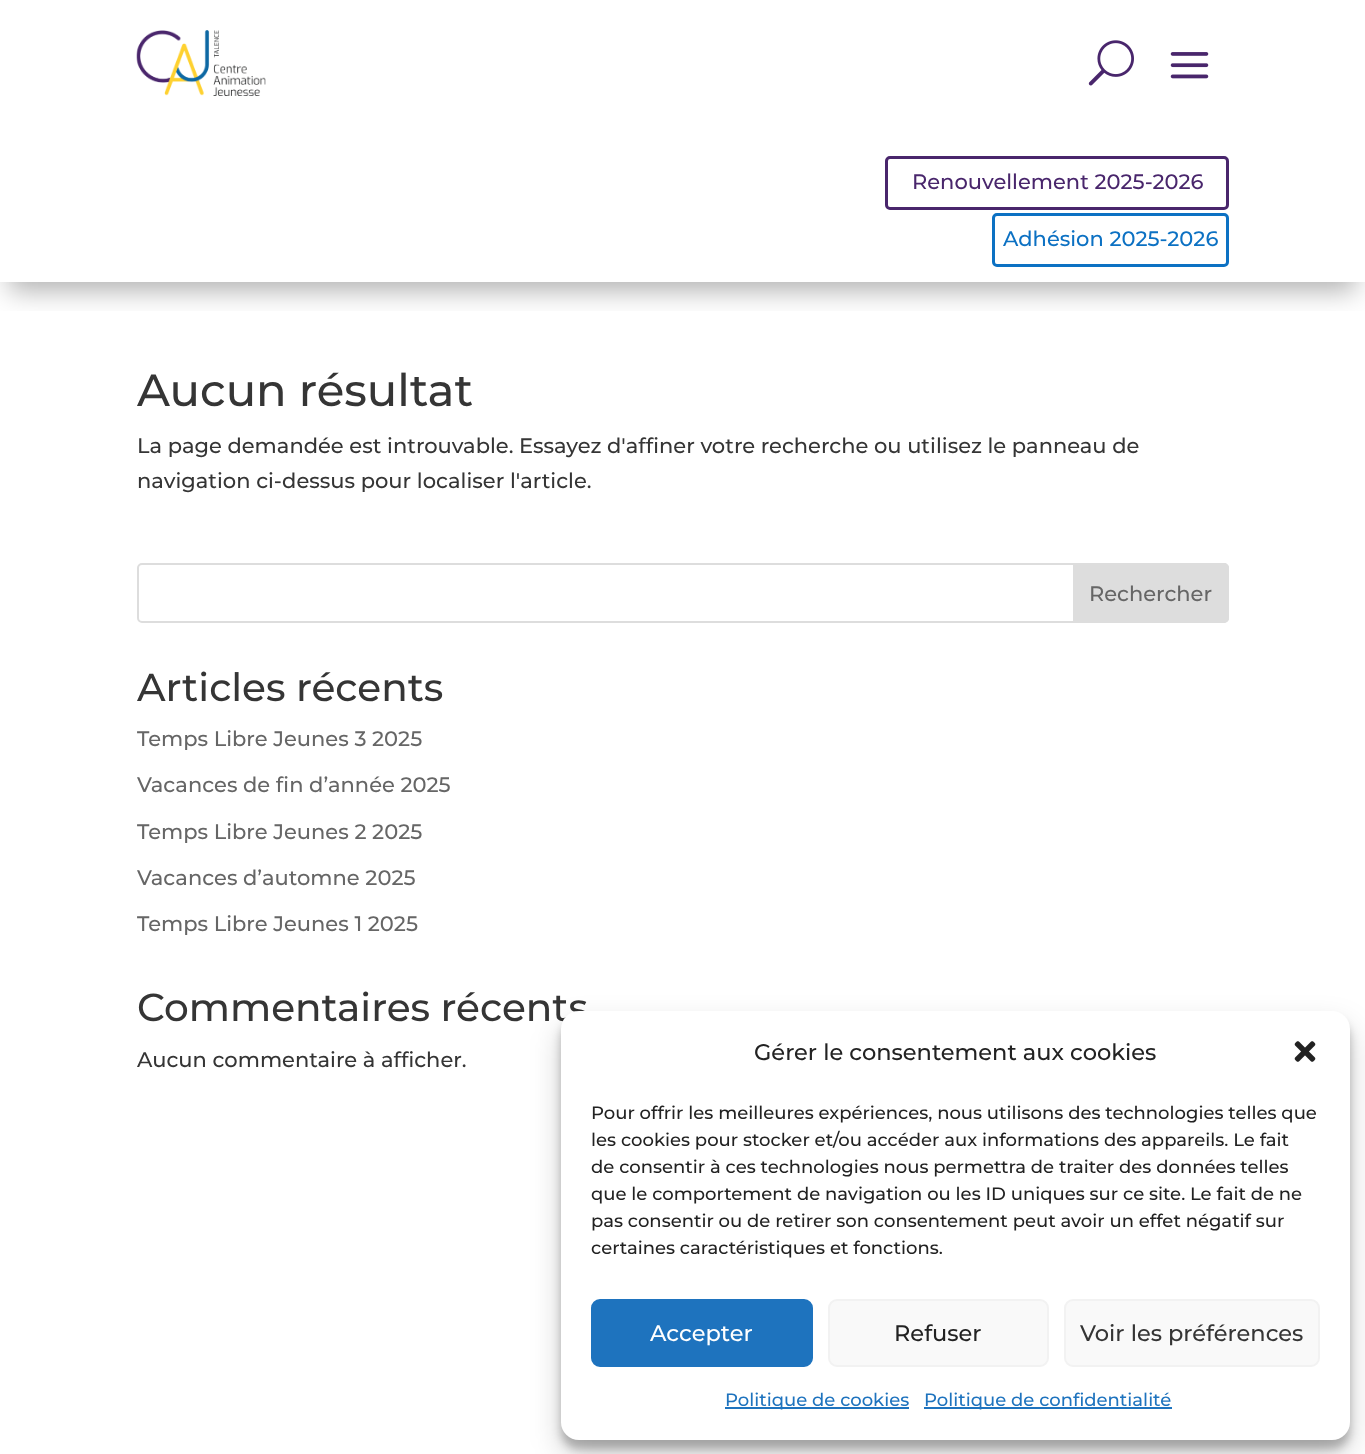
<!DOCTYPE html>
<meta charset="utf-8">
<style>body { margin: 0 } canvas { display: block }</style>
<canvas id="canvas" width="1365" height="1454"></canvas>
<script type="module">
  const canvas = document.getElementById("canvas");
  const ctx = canvas.getContext("2d");
  ctx.miterLimit = 4;
  ctx.fontKerning = "normal";
  async function loadImage(src) {
    const img = new Image();
    img.src = src;
    await img.decode();
    return img;
  }

  ctx.fillStyle = "#ffffff";
  ctx.fillRect(0, 0, 1365, 1454);
  ctx.save();
  ctx.beginPath();
  ctx.rect(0, 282, 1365, 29);
  ctx.clip();
  ctx.fillStyle = "rgba(0, 0, 0, 0.3)";
  ctx.filter = "blur(13.5px)";
  ctx.beginPath();
  ctx.rect(9, 27, 1347, 264);
  ctx.fill();
  ctx.filter = "none";
  ctx.restore();
  ctx.drawImage(await loadImage("img1.png"), 136, 30, 130, 66);
  ctx.drawImage(await loadImage("img2.png"), 1088, 40, 46, 46);
  ctx.drawImage(await loadImage("img3.png"), 1170, 52, 39, 27);
  ctx.beginPath();
  ctx.roundRect(886.5, 157.5, 341, 51, 3.5);
  ctx.strokeStyle = "#49266c";
  ctx.lineWidth = 3;
  ctx.stroke();
  ctx.font = "500 21px Montserrat";
  ctx.fillStyle = "#49266c";
  ctx.fillText("Renouvellement 2025-2026", 912, 189);
  ctx.beginPath();
  ctx.roundRect(993.5, 214.5, 234, 51, 3.5);
  ctx.strokeStyle = "#0c71c3";
  ctx.stroke();
  ctx.fillStyle = "#0c71c3";
  ctx.fillText("Adhésion 2025-2026", 1003, 246);
  ctx.font = "500 45px Montserrat";
  ctx.fillStyle = "#353535";
  ctx.fillText("Aucun résultat", 137, 406);
  ctx.font = "500 21px Montserrat";
  ctx.fillText("La page demandée est introuvable. Essayez d'affiner votre recherche ou utilisez le panneau de", 137, 453);
  ctx.fillText("navigation ci-dessus pour localiser l'article.", 137, 488);
  ctx.beginPath();
  ctx.roundRect(138, 564, 1090, 58, 4);
  ctx.strokeStyle = "#dddddd";
  ctx.lineWidth = 2;
  ctx.stroke();
  ctx.fillStyle = "#dddddd";
  ctx.beginPath();
  ctx.roundRect(1074, 564, 154, 58, [0, 4, 4, 0]);
  ctx.fill();
  ctx.stroke();
  ctx.fillStyle = "#666666";
  ctx.fillText("Rechercher", 1089, 601);
  ctx.font = "500 39px Montserrat";
  ctx.fillStyle = "#353535";
  ctx.fillText("Articles récents", 137, 701);
  ctx.font = "500 21px Montserrat";
  ctx.fillStyle = "#666666";
  ctx.fillText("Temps Libre Jeunes 3 2025", 137, 746);
  ctx.fillText("Vacances de fin d’année 2025", 137, 792);
  ctx.fillText("Temps Libre Jeunes 2 2025", 137, 839);
  ctx.fillText("Vacances d’automne 2025", 137, 885);
  ctx.fillText("Temps Libre Jeunes 1 2025", 137, 931);
  ctx.font = "500 39px Montserrat";
  ctx.fillStyle = "#353535";
  ctx.fillText("Commentaires récents", 137, 1021);
  ctx.font = "500 21px Montserrat";
  ctx.fillText("Aucun commentaire à afficher.", 137, 1067);
  ctx.fillStyle = "rgba(0, 0, 0, 0.23)";
  ctx.filter = "blur(4.5px)";
  ctx.beginPath();
  ctx.roundRect(561, 1020, 789, 429, 18);
  ctx.fill();
  ctx.filter = "none";
  ctx.fillStyle = "rgba(0, 0, 0, 0.19)";
  ctx.filter = "blur(15px)";
  ctx.beginPath();
  ctx.roundRect(561, 1026, 789, 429, 18);
  ctx.fill();
  ctx.filter = "none";
  ctx.fillStyle = "#ffffff";
  ctx.beginPath();
  ctx.roundRect(561, 1011, 789, 429, 18);
  ctx.fill();
  ctx.font = "500 22.5px Montserrat";
  ctx.fillStyle = "#222222";
  ctx.fillText("Gérer le consentement aux cookies", 754, 1060);
  ctx.drawImage(await loadImage("img4.png"), 1294, 1041, 22, 21);
  ctx.font = "500 18px Montserrat";
  ctx.fillText("Pour offrir les meilleures expériences, nous utilisons des technologies telles que", 591, 1119);
  ctx.fillText("les cookies pour stocker et/ou accéder aux informations des appareils. Le fait", 591, 1146);
  ctx.fillText("de consentir à ces technologies nous permettra de traiter des données telles", 591, 1173);
  ctx.fillText("que le comportement de navigation ou les ID uniques sur ce site. Le fait de ne", 591, 1200);
  ctx.fillText("pas consentir ou de retirer son consentement peut avoir un effet négatif sur", 591, 1227);
  ctx.fillText("certaines caractéristiques et fonctions.", 591, 1254);
  ctx.fillStyle = "#1e73be";
  ctx.beginPath();
  ctx.roundRect(592, 1300, 220, 66, 8);
  ctx.fill();
  ctx.strokeStyle = "#1e73be";
  ctx.stroke();
  ctx.font = "500 22.5px Montserrat";
  ctx.fillStyle = "#ffffff";
  ctx.fillText("Accepter", 650, 1341);
  ctx.fillStyle = "#f9f9f9";
  ctx.beginPath();
  ctx.roundRect(829, 1300, 219, 66, 8);
  ctx.fill();
  ctx.strokeStyle = "#f2f2f2";
  ctx.stroke();
  ctx.fillStyle = "#222222";
  ctx.fillText("Refuser", 894, 1341);
  ctx.fillStyle = "#f9f9f9";
  ctx.beginPath();
  ctx.roundRect(1065, 1300, 254, 66, 8);
  ctx.fill();
  ctx.stroke();
  ctx.fillStyle = "#353535";
  ctx.fillText("Voir les préférences", 1080, 1341);
  ctx.fillStyle = "#1e73be";
  ctx.fillRect(725, 1407, 184, 2);
  ctx.font = "500 18px Montserrat";
  ctx.fillText("Politique de cookies", 725, 1406);
  ctx.fillRect(924, 1407, 248, 2);
  ctx.fillText("Politique de confidentialité", 924, 1406);
</script>
